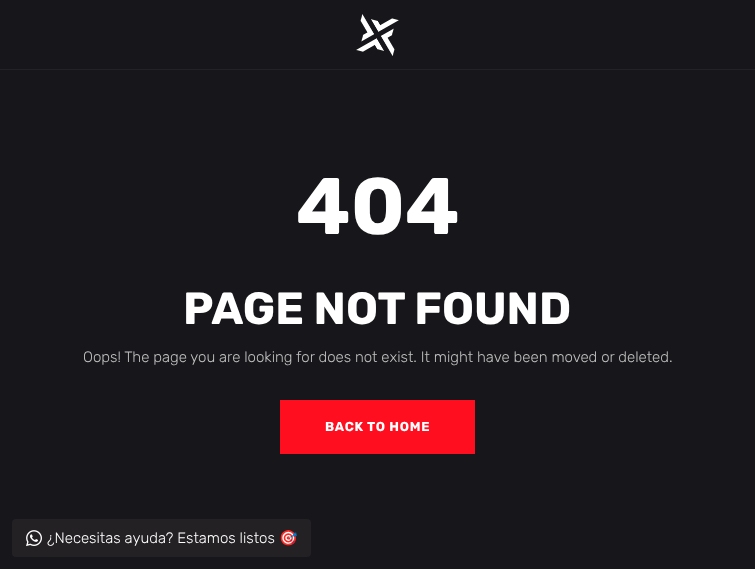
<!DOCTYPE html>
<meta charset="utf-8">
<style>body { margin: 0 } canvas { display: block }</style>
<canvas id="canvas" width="755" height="569"></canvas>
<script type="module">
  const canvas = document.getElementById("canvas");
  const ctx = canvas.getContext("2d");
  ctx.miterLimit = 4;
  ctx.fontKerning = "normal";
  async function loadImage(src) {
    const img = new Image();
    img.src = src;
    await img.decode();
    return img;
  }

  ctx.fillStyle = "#17161a";
  ctx.fillRect(0, 0, 755, 569);
  ctx.fillStyle = "#232225";
  ctx.fillRect(0, 69, 755, 1);
  ctx.drawImage(await loadImage("img1.png"), 356, 14, 43, 42);
  ctx.font = "bold 80px Rubik";
  ctx.fillStyle = "#ffffff";
  ctx.fillText("404", 296, 234);
  ctx.font = "bold 45px Rubik";
  ctx.fillText("PAGE NOT FOUND", 183, 324);
  ctx.font = "300 15px Rubik";
  ctx.fillStyle = "#c0c0c0";
  ctx.fillText("Oops! The page you are looking for does not exist. It might have been moved or deleted.", 83, 362);
  ctx.fillStyle = "#ff0e1f";
  ctx.fillRect(280, 400, 195, 54);
  ctx.letterSpacing = "0.75px";
  ctx.font = "bold 13px Rubik";
  ctx.fillStyle = "#ffffff";
  ctx.fillText("BACK TO HOME", 325, 431);
  ctx.fillStyle = "#242124";
  ctx.beginPath();
  ctx.roundRect(12, 519, 299, 38, 4);
  ctx.fill();
  ctx.drawImage(await loadImage("img2.png"), 26, 530, 16, 17);
  ctx.letterSpacing = "0px";
  ctx.font = "300 15px Rubik";
  ctx.fillStyle = "#ffffff";
  ctx.fillText("¿Necesitas ayuda? Estamos listos", 47, 543);
  ctx.font = "15px Noto Color Emoji";
  ctx.fillText("🎯", 279, 543);
</script>
